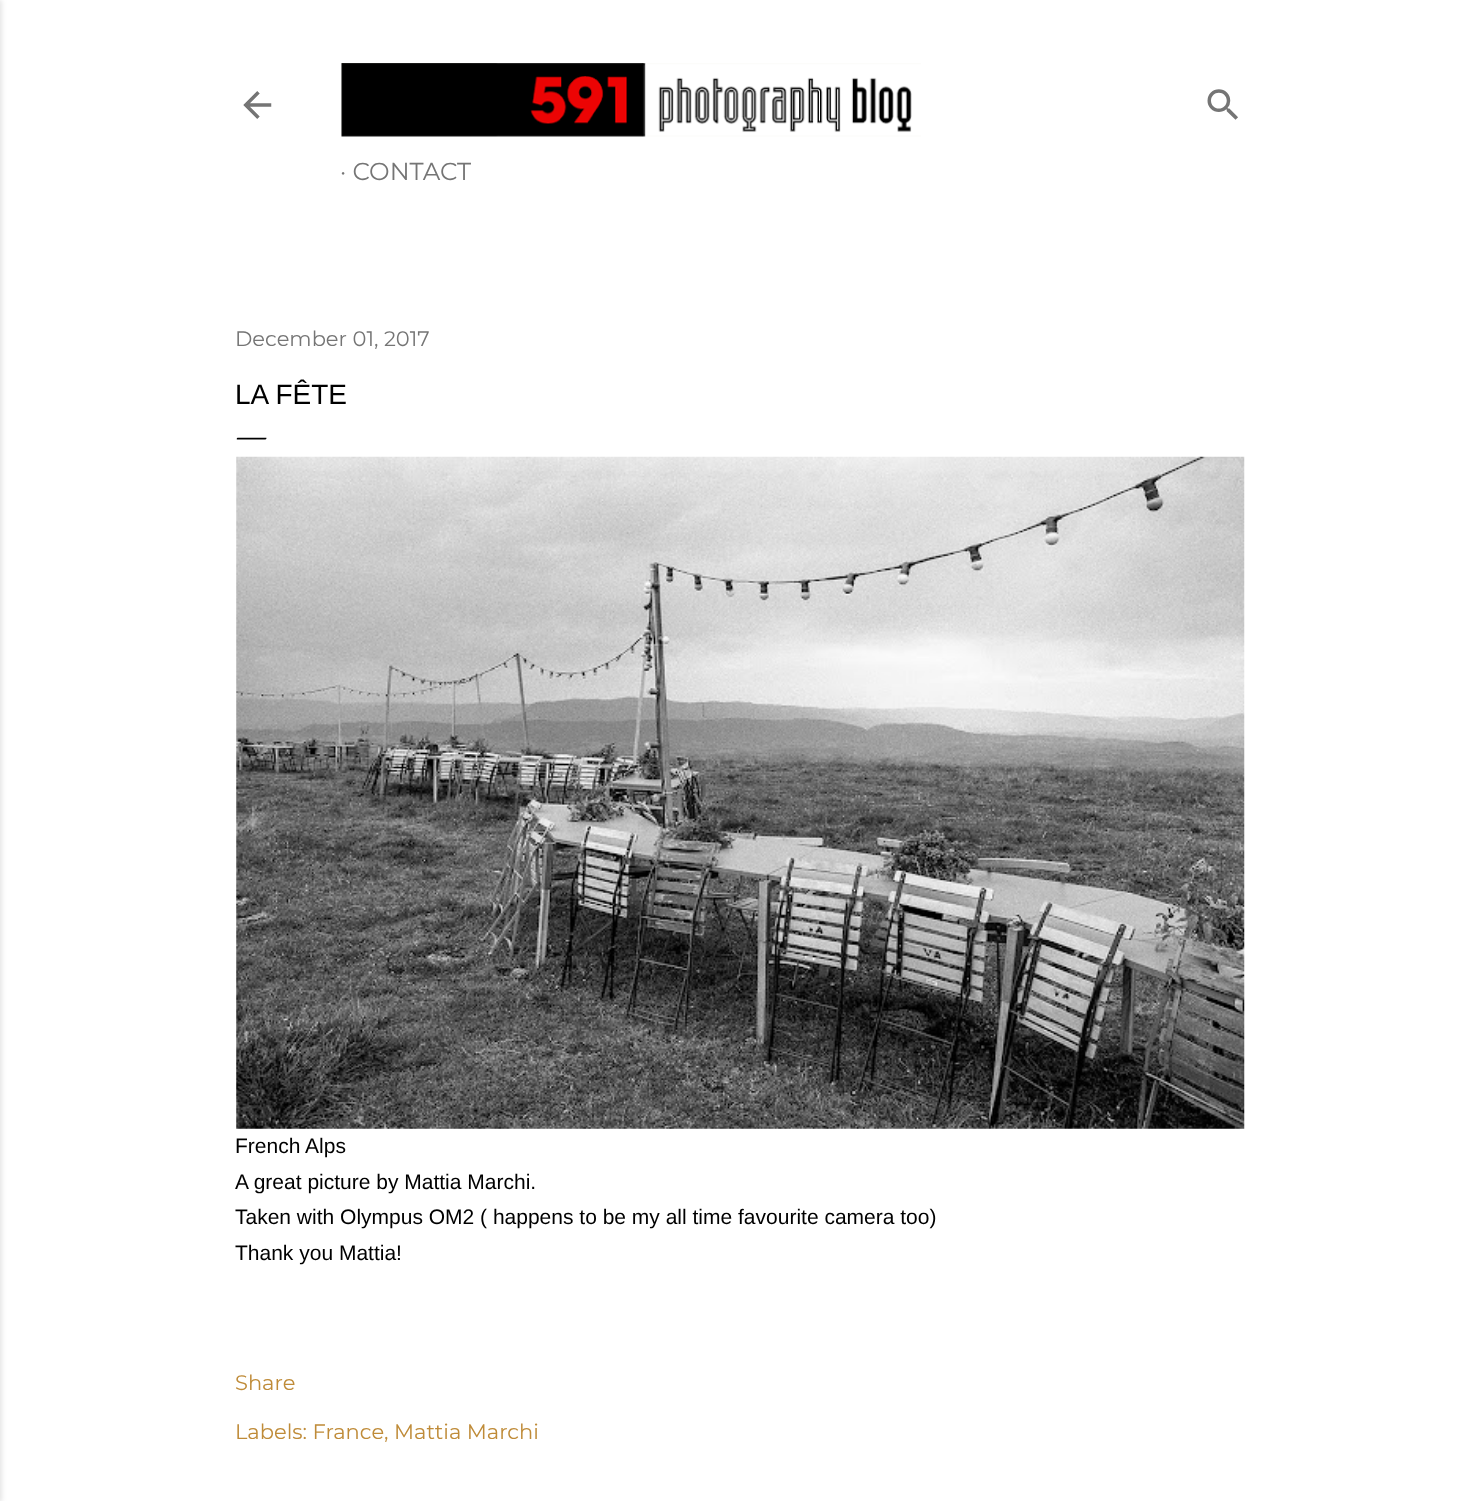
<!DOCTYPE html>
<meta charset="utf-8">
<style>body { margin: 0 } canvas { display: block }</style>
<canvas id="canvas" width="1478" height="1501"></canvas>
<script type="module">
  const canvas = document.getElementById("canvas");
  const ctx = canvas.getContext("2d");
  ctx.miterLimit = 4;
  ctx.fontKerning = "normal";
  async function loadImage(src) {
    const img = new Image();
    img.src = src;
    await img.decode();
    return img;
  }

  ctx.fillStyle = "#ffffff";
  ctx.fillRect(0, 0, 1478, 1501);
  ctx.fillStyle = "rgba(0, 0, 0, 0.1)";
  ctx.filter = "blur(2.5px)";
  ctx.beginPath();
  ctx.rect(-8, 0, 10, 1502);
  ctx.fill();
  ctx.filter = "none";
  ctx.drawImage(await loadImage("img1.png"), 243, 91, 29, 28);
  ctx.drawImage(await loadImage("img2.png"), 1207, 89, 31, 31);
  ctx.drawImage(await loadImage("img3.png"), 341, 63, 580, 74);
  ctx.font = "24.5px Montserrat";
  ctx.fillStyle = "#757575";
  ctx.fillText("· CONTACT", 340, 180);
  ctx.font = "21px Montserrat";
  ctx.fillText("December 01, 2017", 235, 346);
  ctx.font = "28px Liberation Sans";
  ctx.fillStyle = "#000000";
  ctx.fillText("LA FÊTE", 235, 404);
  ctx.font = "35px EB Garamond";
  ctx.fillText("—", 235, 446);
  ctx.drawImage(await loadImage("img4.png"), 236, 456, 1009, 673);
  ctx.font = "21px Liberation Sans";
  ctx.fillText("French Alps", 235, 1153);
  ctx.fillText("A great picture by Mattia Marchi.", 235, 1189);
  ctx.fillText("Taken with Olympus OM2 ( happens to be my all time favourite camera too)", 235, 1224);
  ctx.fillText("Thank you Mattia!", 235, 1260);
  ctx.font = "21px Montserrat";
  ctx.fillStyle = "#bf8b38";
  ctx.fillText("Share", 235, 1390);
  ctx.fillText("Labels: France, Mattia Marchi", 235, 1439);
</script>
